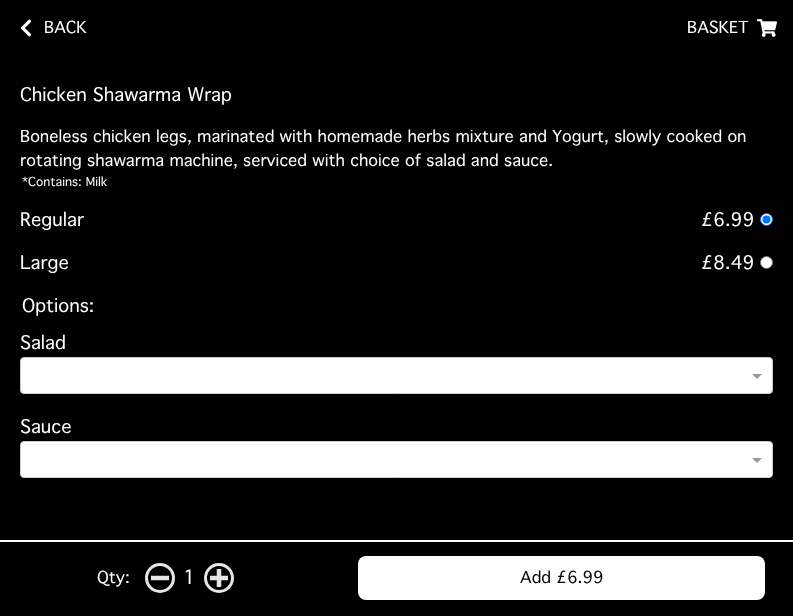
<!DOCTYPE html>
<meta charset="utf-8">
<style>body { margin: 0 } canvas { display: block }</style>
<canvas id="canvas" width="793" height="616"></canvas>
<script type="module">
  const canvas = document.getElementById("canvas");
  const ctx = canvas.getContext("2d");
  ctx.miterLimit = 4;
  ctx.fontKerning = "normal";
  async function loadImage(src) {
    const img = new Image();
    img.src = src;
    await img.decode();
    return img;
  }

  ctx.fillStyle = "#000000";
  ctx.fillRect(0, 0, 793, 616);
  ctx.drawImage(await loadImage("img1.png"), 20, 19, 12, 18);
  ctx.font = "100 16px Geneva";
  ctx.fillStyle = "#ffffff";
  ctx.fillText("BACK", 44, 33);
  ctx.fillText("BASKET", 687, 33);
  ctx.drawImage(await loadImage("img2.png"), 757, 19, 20, 18);
  ctx.font = "100 18px Geneva";
  ctx.fillText("Chicken Shawarma Wrap", 20, 101);
  ctx.font = "100 16px Geneva";
  ctx.fillText("Boneless chicken legs, marinated with homemade herbs mixture and Yogurt, slowly cooked on", 20, 142);
  ctx.fillText("rotating shawarma machine, serviced with choice of salad and sauce.", 20, 166);
  ctx.font = "100 12px Geneva";
  ctx.fillText("*Contains: Milk", 22, 186);
  ctx.font = "100 18px Geneva";
  ctx.fillText("Regular", 20, 226);
  ctx.fillText("£6.99", 701, 226);
  ctx.beginPath();
  ctx.arc(766.5, 219.5, 6, 0, Math.PI * 2);
  ctx.fill();
  ctx.strokeStyle = "#0075ff";
  ctx.stroke();
  ctx.fillStyle = "#0075ff";
  ctx.beginPath();
  ctx.arc(766.5, 219.5, 4, 0, Math.PI * 2);
  ctx.fill();
  ctx.fillStyle = "#ffffff";
  ctx.fillText("Large", 20, 269);
  ctx.fillText("£8.49", 701, 269);
  ctx.beginPath();
  ctx.arc(766.5, 262.5, 6, 0, Math.PI * 2);
  ctx.fill();
  ctx.strokeStyle = "#767676";
  ctx.stroke();
  ctx.fillText("Options:", 22, 312);
  ctx.fillText("Salad", 20, 349);
  ctx.beginPath();
  ctx.roundRect(20.5, 357.5, 752, 36, 3.5);
  ctx.fill();
  ctx.strokeStyle = "#cccccc";
  ctx.stroke();
  ctx.fillStyle = "#999999";
  ctx.beginPath();
  ctx.moveTo(752, 374);
  ctx.lineTo(762, 374);
  ctx.lineTo(757, 379);
  ctx.closePath();
  ctx.fill();
  ctx.fillStyle = "#ffffff";
  ctx.fillText("Sauce", 20, 433);
  ctx.beginPath();
  ctx.roundRect(20.5, 441.5, 752, 36, 3.5);
  ctx.fill();
  ctx.stroke();
  ctx.fillStyle = "#999999";
  ctx.beginPath();
  ctx.moveTo(752, 458);
  ctx.lineTo(762, 458);
  ctx.lineTo(757, 463);
  ctx.closePath();
  ctx.fill();
  ctx.fillStyle = "#ffffff";
  ctx.fillRect(0, 540, 793, 2);
  ctx.font = "100 16px Geneva";
  ctx.fillText("Qty:", 97, 583);
  ctx.beginPath();
  ctx.arc(160, 578, 13.5, 0, Math.PI * 2);
  ctx.strokeStyle = "#e6e6e6";
  ctx.lineWidth = 3;
  ctx.stroke();
  ctx.beginPath();
  ctx.moveTo(151, 578);
  ctx.lineTo(169, 578);
  ctx.lineWidth = 4.5;
  ctx.stroke();
  ctx.font = "100 19px Geneva";
  ctx.fillText("1", 183, 584);
  ctx.beginPath();
  ctx.arc(219, 578, 13.5, 0, Math.PI * 2);
  ctx.lineWidth = 3;
  ctx.stroke();
  ctx.beginPath();
  ctx.moveTo(210, 578);
  ctx.lineTo(228, 578);
  ctx.moveTo(219, 569);
  ctx.lineTo(219, 587);
  ctx.lineWidth = 4.5;
  ctx.stroke();
  ctx.beginPath();
  ctx.roundRect(358, 556, 407, 44, 8);
  ctx.fill();
  ctx.font = "100 16px Geneva";
  ctx.fillStyle = "#000000";
  ctx.fillText("Add £6.99", 520, 583);
</script>
